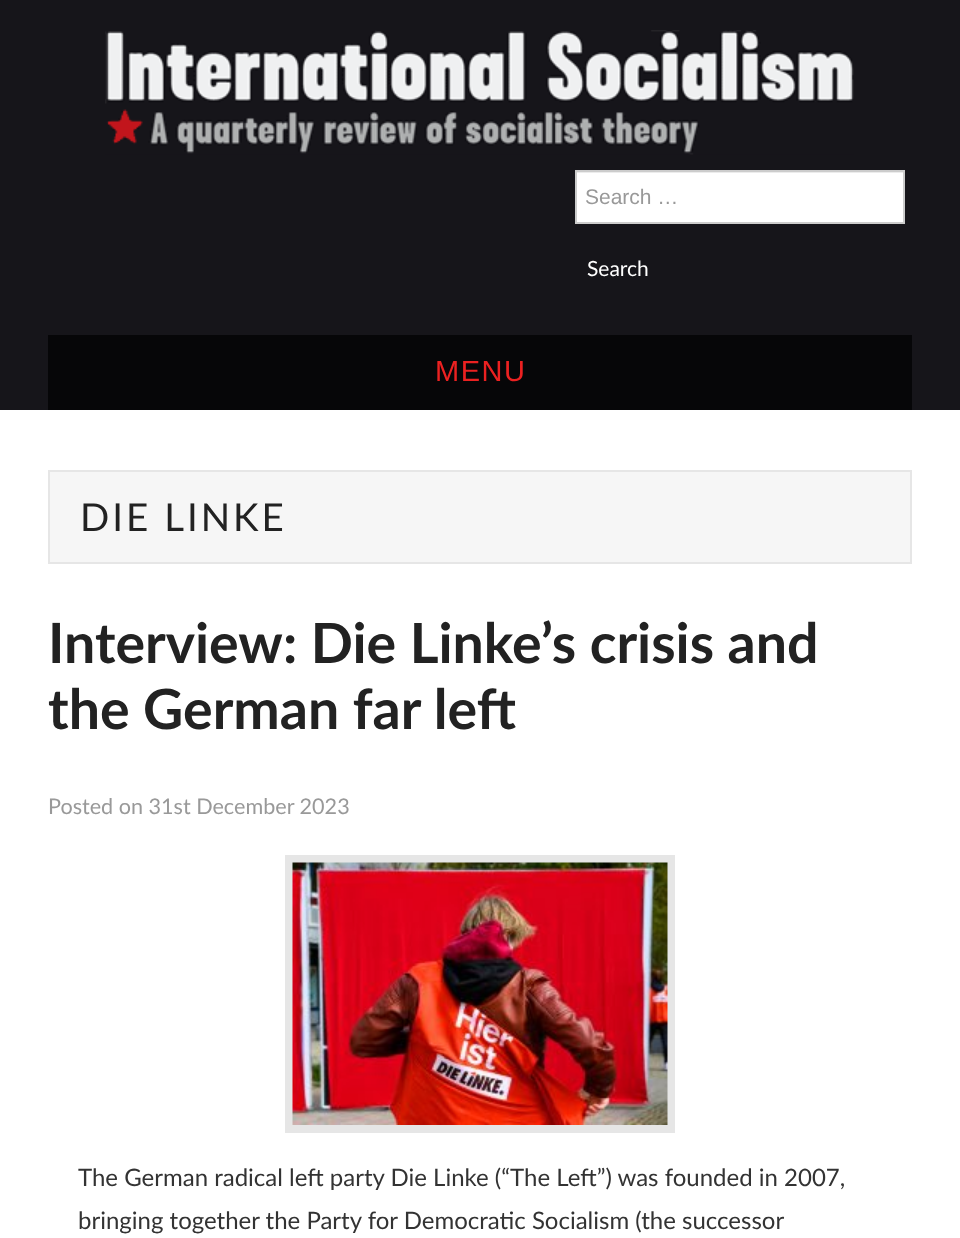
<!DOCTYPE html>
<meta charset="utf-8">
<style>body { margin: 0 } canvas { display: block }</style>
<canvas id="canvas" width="960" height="1238"></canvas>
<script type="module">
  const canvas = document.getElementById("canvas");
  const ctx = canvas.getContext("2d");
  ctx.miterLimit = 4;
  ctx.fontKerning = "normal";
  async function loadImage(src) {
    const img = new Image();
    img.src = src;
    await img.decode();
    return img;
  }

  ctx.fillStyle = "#ffffff";
  ctx.fillRect(0, 0, 960, 1238);
  ctx.fillStyle = "#16151a";
  ctx.fillRect(0, 0, 960, 410);
  ctx.drawImage(await loadImage("img1.png"), 105, 30, 749, 125);
  ctx.fillStyle = "#ffffff";
  ctx.fillRect(577, 173, 326, 49);
  ctx.fillStyle = "#ececec";
  ctx.fillRect(576, 172, 327, 1);
  ctx.strokeStyle = "#cccccc";
  ctx.lineWidth = 2;
  ctx.strokeRect(576, 171, 328, 52);
  ctx.font = "21px Liberation Sans";
  ctx.fillStyle = "#999999";
  ctx.fillText("Search …", 585, 204);
  ctx.font = "21px Lato";
  ctx.fillStyle = "#ffffff";
  ctx.fillText("Search", 587, 276);
  ctx.fillStyle = "#060608";
  ctx.fillRect(48, 335, 864, 75);
  ctx.letterSpacing = "1.5px";
  ctx.font = "29px Liberation Sans";
  ctx.fillStyle = "#eb2121";
  ctx.fillText("MENU", 435, 381);
  ctx.fillStyle = "#f6f6f6";
  ctx.beginPath();
  ctx.rect(49, 471, 862, 92);
  ctx.fill();
  ctx.strokeStyle = "#e6e6e6";
  ctx.stroke();
  ctx.letterSpacing = "3px";
  ctx.font = "38.5px Lato";
  ctx.fillStyle = "#222222";
  ctx.fillText("DIE LINKE", 80, 531);
  ctx.letterSpacing = "0px";
  ctx.font = "bold 55.5px Lato";
  ctx.fillText("Interview: Die Linke’s crisis and", 48, 663);
  ctx.fillText("the German far left", 48, 729);
  ctx.font = "21.6px Lato";
  ctx.fillStyle = "#999999";
  ctx.fillText("Posted on 31st December 2023", 48, 814);
  ctx.lineWidth = 8;
  ctx.strokeRect(289, 859, 382, 270);
  ctx.drawImage(await loadImage("img2.png"), 292, 862, 376, 263);
  ctx.font = "24px Lato";
  ctx.fillStyle = "#333333";
  ctx.fillText("The German radical left party Die Linke (“The Left”) was founded in 2007,", 78, 1186);
  ctx.fillText("bringing together the Party for Democratic Socialism (the successor", 78, 1229);
</script>
